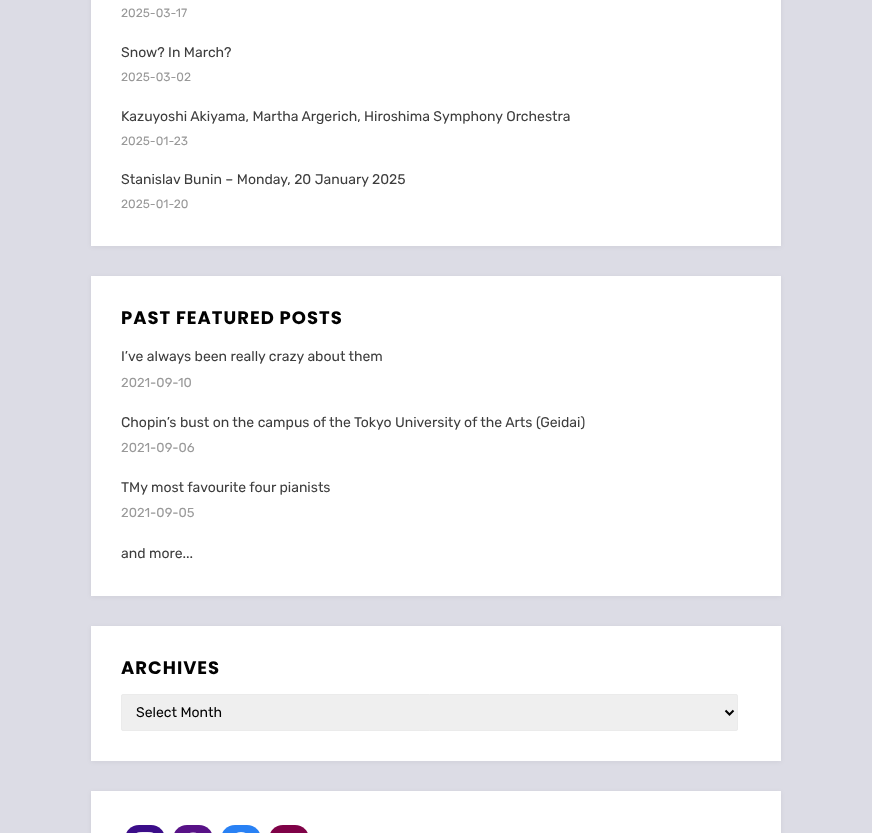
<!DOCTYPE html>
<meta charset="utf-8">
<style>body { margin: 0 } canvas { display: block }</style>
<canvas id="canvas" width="872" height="833"></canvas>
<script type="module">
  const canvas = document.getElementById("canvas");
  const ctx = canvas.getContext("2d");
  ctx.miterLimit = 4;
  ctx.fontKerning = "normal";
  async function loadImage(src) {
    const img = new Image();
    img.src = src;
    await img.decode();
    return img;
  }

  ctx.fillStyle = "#dcdce5";
  ctx.fillRect(0, 0, 872, 833);
  ctx.fillStyle = "rgba(0, 0, 1, 0.05)";
  ctx.filter = "blur(2.5px)";
  ctx.beginPath();
  ctx.rect(91, -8, 690, 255);
  ctx.fill();
  ctx.filter = "none";
  ctx.fillStyle = "#ffffff";
  ctx.fillRect(91, 0, 690, 246);
  ctx.font = "12px Rubik";
  ctx.fillStyle = "#999999";
  ctx.fillText("2025-03-17", 121, 17);
  ctx.font = "14px Rubik";
  ctx.fillStyle = "#3d3d3d";
  ctx.fillText("Snow? In March?", 121, 57);
  ctx.font = "12px Rubik";
  ctx.fillStyle = "#999999";
  ctx.fillText("2025-03-02", 121, 81);
  ctx.font = "14px Rubik";
  ctx.fillStyle = "#3d3d3d";
  ctx.fillText("Kazuyoshi Akiyama, Martha Argerich, Hiroshima Symphony Orchestra", 121, 121);
  ctx.font = "12px Rubik";
  ctx.fillStyle = "#999999";
  ctx.fillText("2025-01-23", 121, 145);
  ctx.font = "14px Rubik";
  ctx.fillStyle = "#3d3d3d";
  ctx.fillText("Stanislav Bunin – Monday, 20 January 2025", 121, 184);
  ctx.font = "12px Rubik";
  ctx.fillStyle = "#999999";
  ctx.fillText("2025-01-20", 121, 208);
  ctx.fillStyle = "rgba(0, 0, 1, 0.05)";
  ctx.filter = "blur(2.5px)";
  ctx.beginPath();
  ctx.rect(91, 277, 690, 320);
  ctx.fill();
  ctx.filter = "none";
  ctx.fillStyle = "#ffffff";
  ctx.fillRect(91, 276, 690, 320);
  ctx.letterSpacing = "1px";
  ctx.font = "bold 18px Poppins";
  ctx.fillStyle = "#020202";
  ctx.fillText("PAST FEATURED POSTS", 121, 324);
  ctx.letterSpacing = "0px";
  ctx.font = "14px Rubik";
  ctx.fillStyle = "#3d3d3d";
  ctx.fillText("I’ve always been really crazy about them", 121, 361);
  ctx.font = "13px Rubik";
  ctx.fillStyle = "#999999";
  ctx.fillText("2021-09-10", 121, 387);
  ctx.font = "14px Rubik";
  ctx.fillStyle = "#3d3d3d";
  ctx.fillText("Chopin’s bust on the campus of the Tokyo University of the Arts (Geidai)", 121, 427);
  ctx.font = "13px Rubik";
  ctx.fillStyle = "#999999";
  ctx.fillText("2021-09-06", 121, 452);
  ctx.font = "14px Rubik";
  ctx.fillStyle = "#3d3d3d";
  ctx.fillText("TMy most favourite four pianists", 121, 492);
  ctx.font = "13px Rubik";
  ctx.fillStyle = "#999999";
  ctx.fillText("2021-09-05", 121, 517);
  ctx.font = "14px Rubik";
  ctx.fillStyle = "#3d3d3d";
  ctx.fillText("and more...", 121, 558);
  ctx.fillStyle = "rgba(0, 0, 1, 0.05)";
  ctx.filter = "blur(2.5px)";
  ctx.beginPath();
  ctx.rect(91, 627, 690, 135);
  ctx.fill();
  ctx.filter = "none";
  ctx.fillStyle = "#ffffff";
  ctx.fillRect(91, 626, 690, 135);
  ctx.letterSpacing = "1px";
  ctx.font = "bold 18px Poppins";
  ctx.fillStyle = "#020202";
  ctx.fillText("ARCHIVES", 121, 674);
  ctx.fillStyle = "#efefef";
  ctx.beginPath();
  ctx.roundRect(121.5, 694.5, 616, 36, 1.5);
  ctx.fill();
  ctx.strokeStyle = "#ebebeb";
  ctx.stroke();
  ctx.beginPath();
  ctx.moveTo(725.5, 710.5);
  ctx.lineTo(729.5, 714.5);
  ctx.lineTo(733.5, 710.5);
  ctx.strokeStyle = "#020202";
  ctx.lineWidth = 2;
  ctx.stroke();
  ctx.letterSpacing = "0px";
  ctx.font = "14px Rubik";
  ctx.fillStyle = "#020202";
  ctx.fillText("Select Month", 136, 717);
  ctx.fillStyle = "rgba(0, 0, 1, 0.05)";
  ctx.filter = "blur(2.5px)";
  ctx.beginPath();
  ctx.rect(91, 792, 690, 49);
  ctx.fill();
  ctx.filter = "none";
  ctx.fillStyle = "#ffffff";
  ctx.fillRect(91, 791, 690, 42);
  ctx.fillStyle = "#3b0d89";
  ctx.beginPath();
  ctx.roundRect(125, 825, 40, 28, 20);
  ctx.fill();
  ctx.drawImage(await loadImage("img1.png"), 136, 832, 18, 1);
  ctx.fillStyle = "#581287";
  ctx.beginPath();
  ctx.roundRect(173, 825, 40, 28, 20);
  ctx.fill();
  ctx.drawImage(await loadImage("img2.png"), 190, 832, 7, 1);
  ctx.fillStyle = "#2981f4";
  ctx.beginPath();
  ctx.roundRect(221, 825, 40, 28, 20);
  ctx.fill();
  ctx.drawImage(await loadImage("img3.png"), 236, 832, 10, 1);
  ctx.fillStyle = "#7f0247";
  ctx.beginPath();
  ctx.roundRect(269, 825, 40, 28, 20);
  ctx.fill();
</script>
